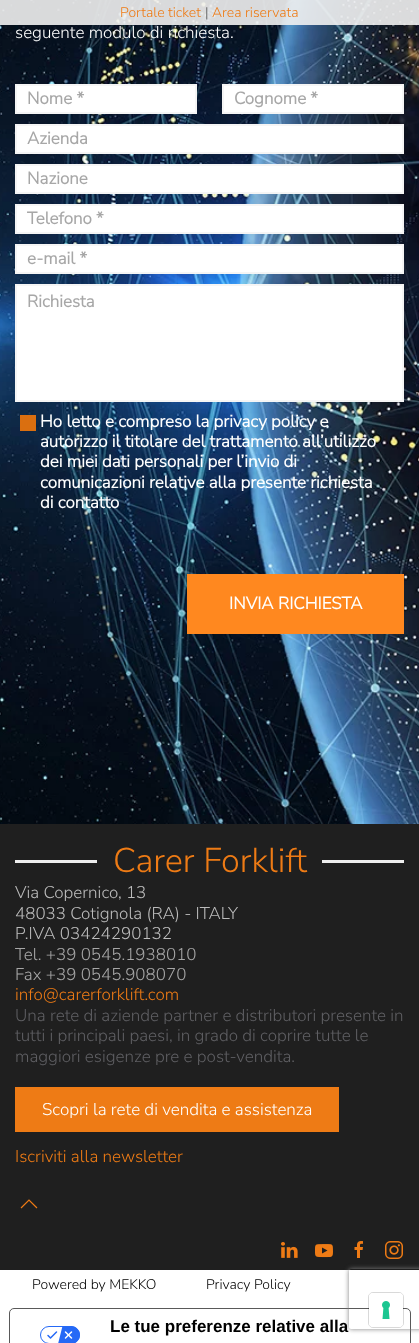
<!DOCTYPE html>
<meta charset="utf-8">
<style>body { margin: 0 } canvas { display: block }</style>
<canvas id="canvas" width="419" height="1343"></canvas>
<script type="module">
  const canvas = document.getElementById("canvas");
  const ctx = canvas.getContext("2d");
  ctx.miterLimit = 4;
  ctx.fontKerning = "normal";
  async function loadImage(src) {
    const img = new Image();
    img.src = src;
    await img.decode();
    return img;
  }

  ctx.fillStyle = "#ffffff";
  ctx.fillRect(0, 0, 419, 1343);
  ctx.drawImage(await loadImage("img1.png"), 0, 0, 419, 824);
  ctx.fillStyle = "rgba(241, 241, 241, 0.9)";
  ctx.fillRect(0, 0, 419, 25);
  ctx.font = "200 14px Nunito Sans";
  ctx.fillStyle = "#ee7b15";
  ctx.fillText("Portale ticket", 120, 17);
  ctx.fillStyle = "#555555";
  ctx.fillText("|", 205, 17);
  ctx.fillStyle = "#ee7b15";
  ctx.fillText("Area riservata", 212, 17);
  ctx.font = "200 17px Nunito Sans";
  ctx.fillStyle = "#ffffff";
  ctx.fillText("seguente modulo di richiesta.", 15, 38);
  ctx.beginPath();
  ctx.rect(16, 85, 180, 28);
  ctx.fill();
  ctx.strokeStyle = "#f5f5f5";
  ctx.lineWidth = 2;
  ctx.stroke();
  ctx.font = "bold 17px Nunito Sans";
  ctx.fillStyle = "#a7a7a7";
  ctx.fillText("Nome *", 27, 104);
  ctx.fillStyle = "#ffffff";
  ctx.beginPath();
  ctx.rect(223, 85, 180, 28);
  ctx.fill();
  ctx.stroke();
  ctx.fillStyle = "#a7a7a7";
  ctx.fillText("Cognome *", 234, 104);
  ctx.fillStyle = "#ffffff";
  ctx.beginPath();
  ctx.rect(16, 125, 387, 28);
  ctx.fill();
  ctx.stroke();
  ctx.fillStyle = "#a7a7a7";
  ctx.fillText("Azienda", 27, 144);
  ctx.fillStyle = "#ffffff";
  ctx.beginPath();
  ctx.rect(16, 165, 387, 28);
  ctx.fill();
  ctx.stroke();
  ctx.fillStyle = "#a7a7a7";
  ctx.fillText("Nazione", 27, 184);
  ctx.fillStyle = "#ffffff";
  ctx.beginPath();
  ctx.rect(16, 205, 387, 28);
  ctx.fill();
  ctx.stroke();
  ctx.fillStyle = "#a7a7a7";
  ctx.fillText("Telefono *", 27, 224);
  ctx.fillStyle = "#ffffff";
  ctx.beginPath();
  ctx.rect(16, 245, 387, 28);
  ctx.fill();
  ctx.stroke();
  ctx.fillStyle = "#a7a7a7";
  ctx.fillText("e-mail *", 27, 264);
  ctx.fillStyle = "#ffffff";
  ctx.beginPath();
  ctx.rect(16, 285, 387, 116);
  ctx.fill();
  ctx.stroke();
  ctx.fillStyle = "#a7a7a7";
  ctx.fillText("Richiesta", 27, 307);
  ctx.fillStyle = "#da6f10";
  ctx.fillRect(20, 415, 16, 16);
  ctx.fillStyle = "#ffffff";
  ctx.fillText("Ho letto e compreso la privacy policy e", 40, 427);
  ctx.fillText("autorizzo il titolare del trattamento all’utilizzo", 40, 447);
  ctx.fillText("dei miei dati personali per l’invio di", 40, 467);
  ctx.fillText("comunicazioni relative alla presente richiesta", 40, 488);
  ctx.fillText("di contatto", 40, 508);
  ctx.fillStyle = "#ff881f";
  ctx.fillRect(187, 574, 217, 60);
  ctx.fillStyle = "#ffffff";
  ctx.fillText("INVIA RICHIESTA", 229, 609);
  ctx.fillStyle = "#1f1f1f";
  ctx.fillRect(0, 824, 419, 446);
  ctx.fillStyle = "#eeeeee";
  ctx.fillRect(15, 860, 82, 3);
  ctx.font = "200 34.25px Nunito Sans";
  ctx.fillStyle = "#ee7b15";
  ctx.fillText("Carer Forklift", 113, 872);
  ctx.fillStyle = "#eeeeee";
  ctx.fillRect(322, 860, 82, 3);
  ctx.font = "200 17px Nunito Sans";
  ctx.fillStyle = "#bcbcbc";
  ctx.fillText("Via Copernico, 13", 15, 898);
  ctx.fillText("48033 Cotignola (RA) - ITALY", 15, 919);
  ctx.fillText("P.IVA 03424290132", 15, 939);
  ctx.fillStyle = "#a7a7a7";
  ctx.fillText("Tel. +39 0545.1938010", 15, 960);
  ctx.fillText("Fax +39 0545.908070", 15, 980);
  ctx.fillStyle = "#ee7b15";
  ctx.fillText("info@carerforklift.com", 15, 1000);
  ctx.fillStyle = "#5f5f63";
  ctx.fillText("Una rete di aziende partner e distributori presente in", 15, 1021);
  ctx.fillText("tutti i principali paesi, in grado di coprire tutte le", 15, 1041);
  ctx.fillText("maggiori esigenze pre e post-vendita.", 15, 1062);
  ctx.fillStyle = "#ee7b15";
  ctx.fillRect(15, 1087, 324, 45);
  ctx.fillStyle = "#ffffff";
  ctx.fillText("Scopri la rete di vendita e assistenza", 42, 1115);
  ctx.fillStyle = "#ee7b15";
  ctx.fillText("Iscriviti alla newsletter", 15, 1162);
  ctx.beginPath();
  ctx.moveTo(21, 1208);
  ctx.lineTo(29, 1200);
  ctx.lineTo(37, 1208);
  ctx.strokeStyle = "#ee7b15";
  ctx.lineWidth = 1.2;
  ctx.stroke();
  ctx.drawImage(await loadImage("img2.png"), 281, 1242, 17, 16);
  ctx.drawImage(await loadImage("img3.png"), 315, 1244, 18, 14);
  ctx.drawImage(await loadImage("img4.png"), 354, 1241, 9, 17);
  ctx.drawImage(await loadImage("img5.png"), 385, 1241, 18, 18);
  ctx.font = "200 14px Nunito Sans";
  ctx.fillStyle = "#000000";
  ctx.fillText("Powered by MEKKO", 32, 1289);
  ctx.fillText("Privacy Policy", 206, 1289);
  ctx.beginPath();
  ctx.roundRect(9.5, 1308.5, 401, 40, 4.5);
  ctx.strokeStyle = "#595959";
  ctx.lineWidth = 1;
  ctx.stroke();
  ctx.save();
  ctx.beginPath();
  ctx.moveTo(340, 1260);
  ctx.lineTo(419, 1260);
  ctx.lineTo(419, 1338);
  ctx.lineTo(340, 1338);
  ctx.closePath();
  ctx.moveTo(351, 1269);
  ctx.lineTo(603, 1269);
  ctx.bezierCurveTo(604, 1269, 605, 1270, 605, 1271);
  ctx.lineTo(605, 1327);
  ctx.bezierCurveTo(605, 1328, 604, 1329, 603, 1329);
  ctx.lineTo(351, 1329);
  ctx.bezierCurveTo(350, 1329, 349, 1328, 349, 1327);
  ctx.lineTo(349, 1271);
  ctx.bezierCurveTo(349, 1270, 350, 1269, 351, 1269);
  ctx.closePath();
  ctx.clip("evenodd");
  ctx.fillStyle = "#808080";
  ctx.filter = "blur(2.5px)";
  ctx.beginPath();
  ctx.roundRect(349, 1269, 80, 60, 2);
  ctx.fill();
  ctx.filter = "none";
  ctx.restore();
  ctx.drawImage(await loadImage("img6.png"), 40, 1326, 40, 17);
  ctx.font = "bold 17px Liberation Sans";
  ctx.fillText("Le tue preferenze relative alla", 110, 1332);
  ctx.beginPath();
  ctx.roundRect(368.5, 1292.5, 35, 35, 4.5);
  ctx.strokeStyle = "rgba(0, 0, 0, 0.15)";
  ctx.stroke();
  ctx.fillStyle = "#ffffff";
  ctx.beginPath();
  ctx.roundRect(369, 1293, 34, 34, 4);
  ctx.fill();
  ctx.drawImage(await loadImage("img7.png"), 382, 1301, 8, 18);
</script>
